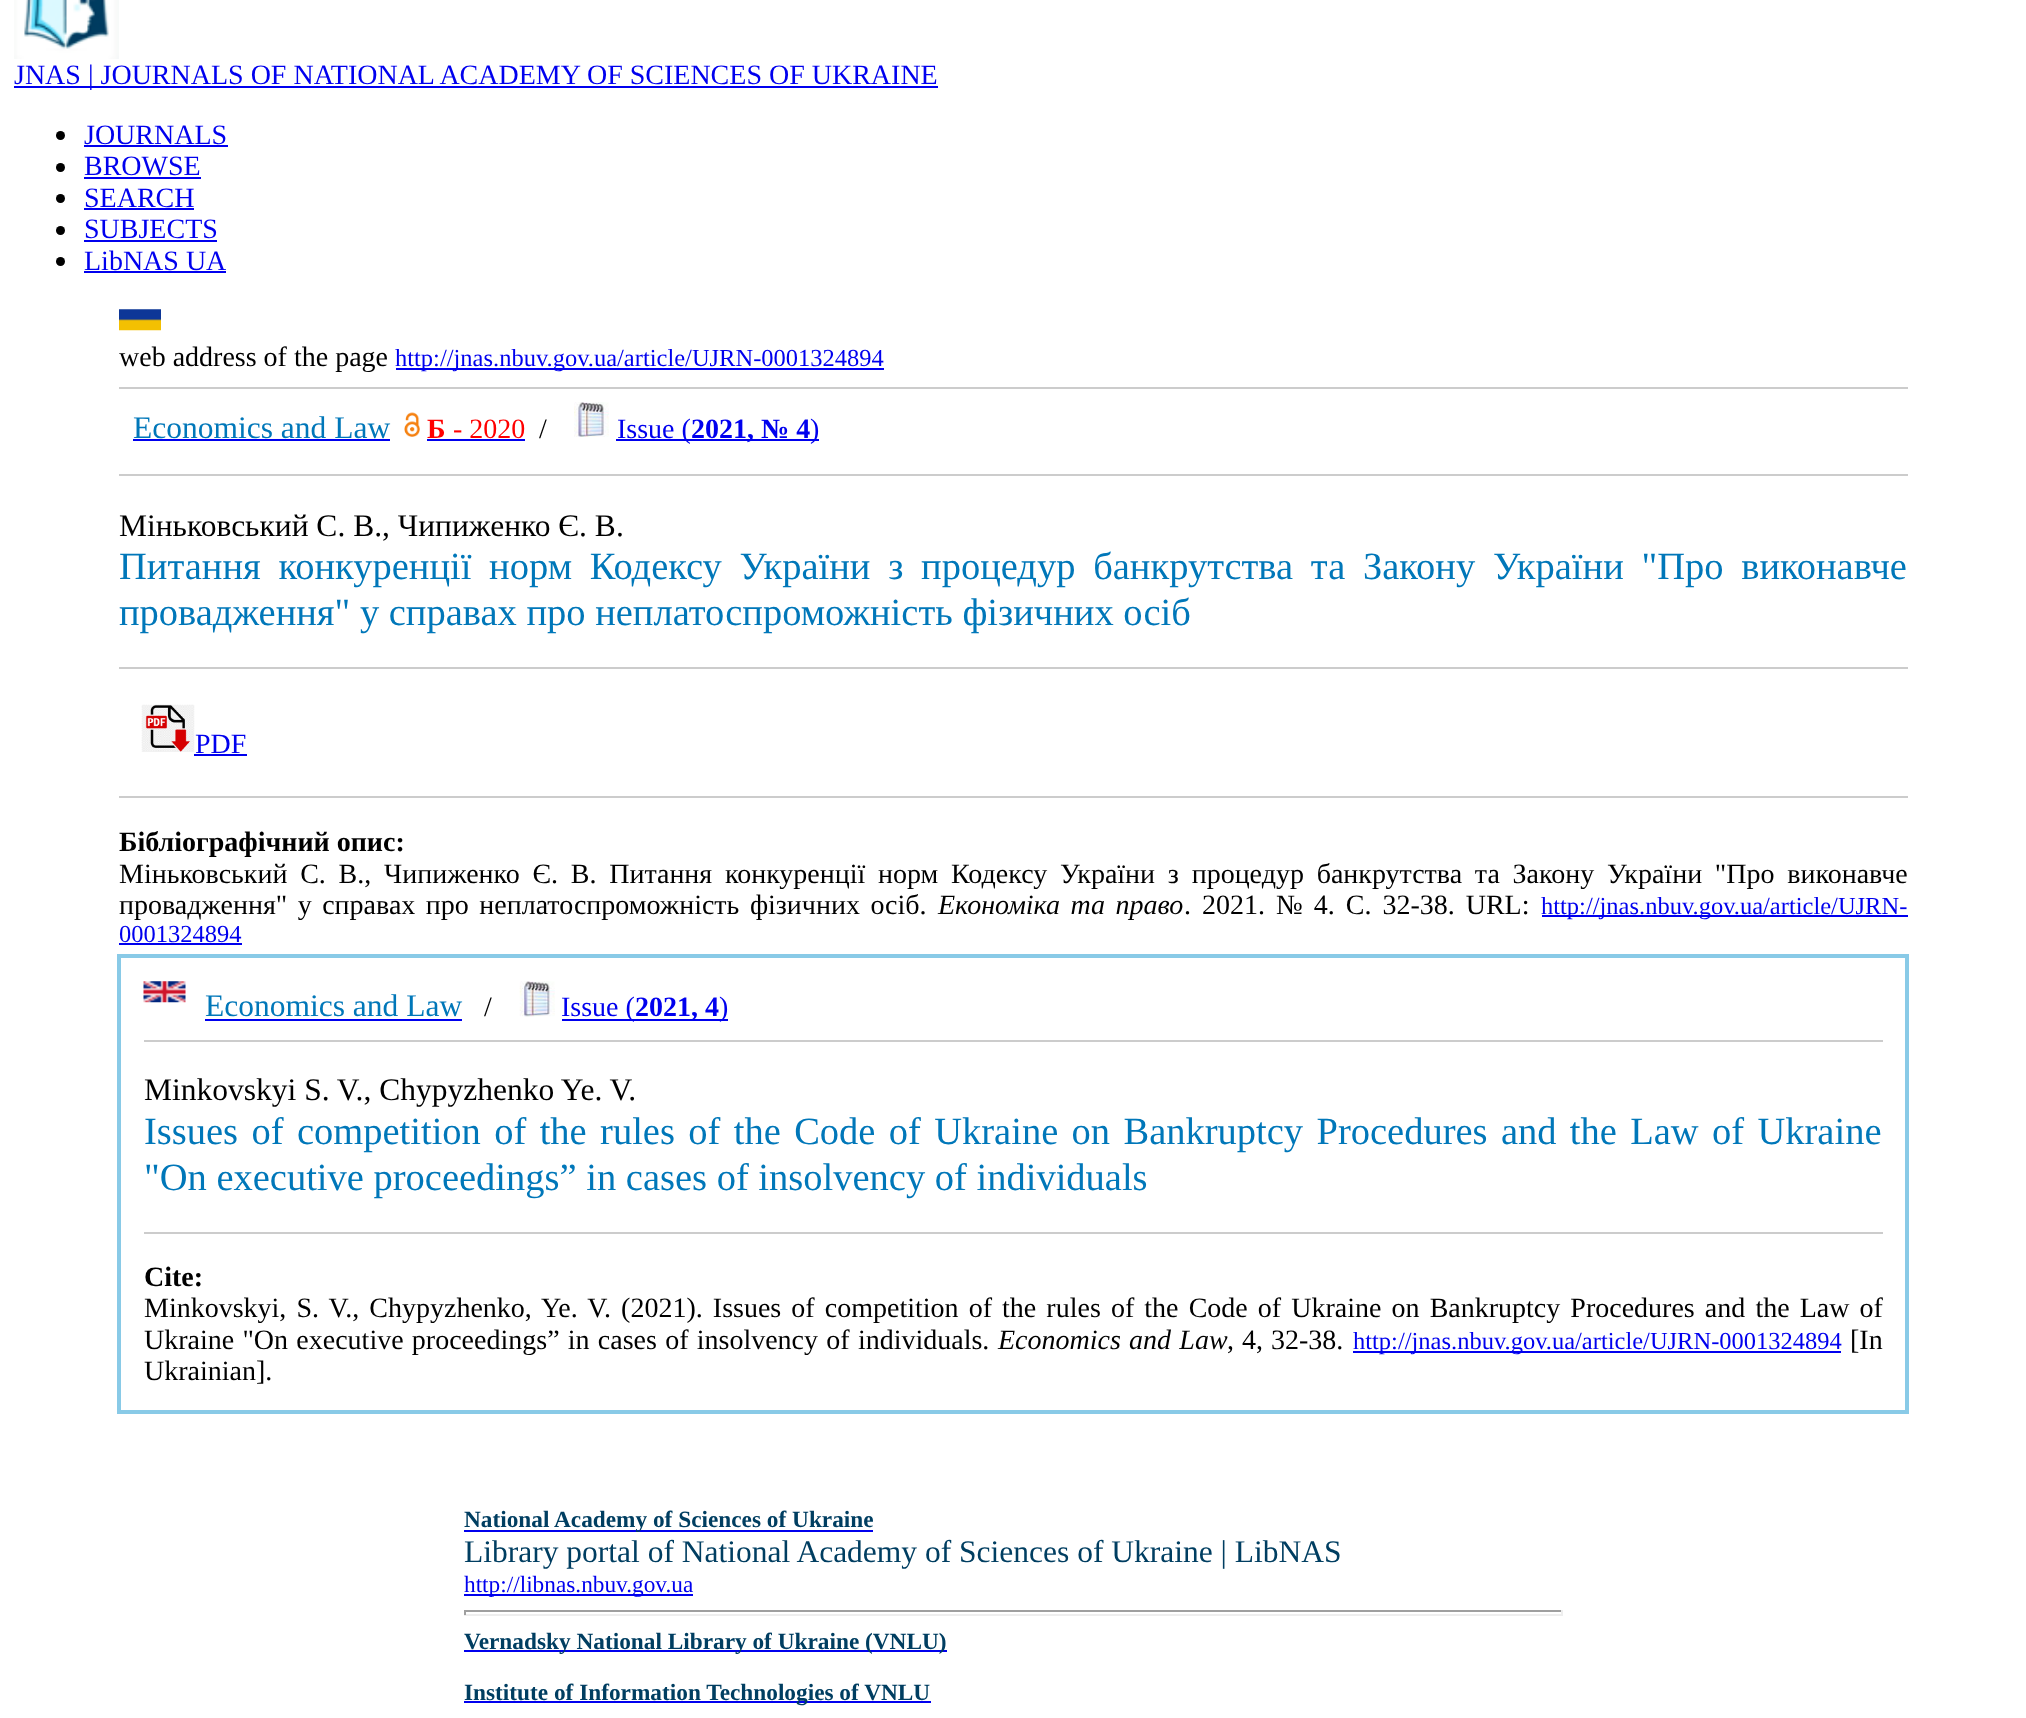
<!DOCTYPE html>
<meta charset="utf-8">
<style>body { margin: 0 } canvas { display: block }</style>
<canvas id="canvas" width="2026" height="1718"></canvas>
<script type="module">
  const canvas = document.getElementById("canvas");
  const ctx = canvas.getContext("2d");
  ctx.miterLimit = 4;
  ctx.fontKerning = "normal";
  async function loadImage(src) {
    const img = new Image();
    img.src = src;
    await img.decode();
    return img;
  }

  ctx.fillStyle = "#ffffff";
  ctx.fillRect(0, 0, 2026, 1718);
  ctx.drawImage(await loadImage("img1.png"), 14, 0, 105, 59);
  ctx.fillStyle = "#0000ee";
  ctx.fillRect(14, 86, 924, 2);
  ctx.font = "28px Liberation Serif";
  ctx.fillText("JNAS | JOURNALS OF NATIONAL ACADEMY OF SCIENCES OF UKRAINE", 14, 84);
  ctx.fillStyle = "#000000";
  ctx.beginPath();
  ctx.arc(60.5, 135.5, 4.5, 0, Math.PI * 2);
  ctx.fill();
  ctx.fillStyle = "#0000ee";
  ctx.fillText("JOURNALS", 84, 144);
  ctx.fillRect(84, 145, 144, 2);
  ctx.fillStyle = "#000000";
  ctx.beginPath();
  ctx.arc(60.5, 167.5, 4.5, 0, Math.PI * 2);
  ctx.fill();
  ctx.fillStyle = "#0000ee";
  ctx.fillText("BROWSE", 84, 175);
  ctx.fillRect(84, 177, 117, 2);
  ctx.fillStyle = "#000000";
  ctx.beginPath();
  ctx.arc(60.5, 198.5, 4.5, 0, Math.PI * 2);
  ctx.fill();
  ctx.fillStyle = "#0000ee";
  ctx.fillText("SEARCH", 84, 207);
  ctx.fillRect(84, 208, 110, 2);
  ctx.fillStyle = "#000000";
  ctx.beginPath();
  ctx.arc(60.5, 230.5, 4.5, 0, Math.PI * 2);
  ctx.fill();
  ctx.fillStyle = "#0000ee";
  ctx.fillText("SUBJECTS", 84, 238);
  ctx.fillRect(84, 240, 133, 2);
  ctx.fillStyle = "#000000";
  ctx.beginPath();
  ctx.arc(60.5, 261.5, 4.5, 0, Math.PI * 2);
  ctx.fill();
  ctx.fillStyle = "#0000ee";
  ctx.fillText("LibNAS UA", 84, 270);
  ctx.fillRect(84, 271, 142, 2);
  ctx.drawImage(await loadImage("img2.png"), 119, 309, 42, 22);
  ctx.fillStyle = "#000000";
  ctx.fillText("web address of the page", 119, 366);
  ctx.fillStyle = "#0000ee";
  ctx.fillRect(396, 368, 488, 2);
  ctx.font = "24.5px Liberation Serif";
  ctx.fillText("http://jnas.nbuv.gov.ua/article/UJRN-0001324894", 395, 366);
  ctx.fillStyle = "#cccccc";
  ctx.fillRect(119, 387, 1789, 2);
  ctx.font = "31.5px Liberation Serif";
  ctx.fillStyle = "#0077b9";
  ctx.fillText("Economics and Law", 133, 438);
  ctx.fillStyle = "#0000ee";
  ctx.fillRect(133, 439, 257, 2);
  ctx.drawImage(await loadImage("img3.png"), 404, 412, 16, 25);
  ctx.font = "bold 28px Liberation Serif";
  ctx.fillStyle = "#ff0000";
  ctx.fillText("Б", 427, 438);
  ctx.fillStyle = "#0000ee";
  ctx.fillRect(427, 439, 98, 2);
  ctx.font = "28px Liberation Serif";
  ctx.fillStyle = "#ff0000";
  ctx.fillText("- 2020", 453, 438);
  ctx.fillStyle = "#000000";
  ctx.fillText("/", 539, 438);
  ctx.drawImage(await loadImage("img4.png"), 574, 402, 35, 35);
  ctx.fillStyle = "#0000ee";
  ctx.fillRect(616, 439, 203, 2);
  ctx.fillText("Issue (", 617, 438);
  ctx.font = "bold 28px Liberation Serif";
  ctx.fillText("2021, № 4", 691, 438);
  ctx.font = "28px Liberation Serif";
  ctx.fillText(")", 810, 438);
  ctx.fillStyle = "#cccccc";
  ctx.fillRect(119, 474, 1789, 2);
  ctx.font = "31.5px Liberation Serif";
  ctx.fillStyle = "#000000";
  ctx.fillText("Міньковський С. В., Чипиженко Є. В.", 119, 536);
  ctx.wordSpacing = "8.1px";
  ctx.font = "38.5px Liberation Serif";
  ctx.fillStyle = "#0077b9";
  ctx.fillText("Питання конкуренції норм Кодексу України з процедур банкрутства та Закону України \"Про виконавче", 119, 579);
  ctx.wordSpacing = "0px";
  ctx.fillText("провадження\" у справах про неплатоспроможність фізичних осіб", 119, 625);
  ctx.fillStyle = "#cccccc";
  ctx.fillRect(119, 667, 1789, 2);
  ctx.drawImage(await loadImage("img5.png"), 141, 704, 54, 48);
  ctx.font = "28px Liberation Serif";
  ctx.fillStyle = "#0000ee";
  ctx.fillText("PDF", 195, 753);
  ctx.fillRect(194, 754, 53, 2);
  ctx.fillStyle = "#cccccc";
  ctx.fillRect(119, 796, 1789, 2);
  ctx.font = "bold 28px Liberation Serif";
  ctx.fillStyle = "#000000";
  ctx.fillText("Бібліографічний опис:", 119, 851);
  ctx.wordSpacing = "5.75px";
  ctx.font = "28px Liberation Serif";
  ctx.fillText("Міньковський С. В., Чипиженко Є. В. Питання конкуренції норм Кодексу України з процедур банкрутства та Закону України \"Про виконавче", 119, 883);
  ctx.wordSpacing = "3.5px";
  ctx.fillText("провадження\" у справах про неплатоспроможність фізичних осіб.", 119, 914);
  ctx.font = "italic 28px Liberation Serif";
  ctx.fillText("Економіка та право", 938, 914);
  ctx.wordSpacing = "4px";
  ctx.font = "28px Liberation Serif";
  ctx.fillText(". 2021. № 4. С. 32-38. URL:", 1184, 914);
  ctx.fillStyle = "#0000ee";
  ctx.fillRect(1542, 915, 366, 2);
  ctx.wordSpacing = "0px";
  ctx.font = "24.5px Liberation Serif";
  ctx.fillText("http://jnas.nbuv.gov.ua/article/UJRN-", 1541, 914);
  ctx.fillText("0001324894", 119, 942);
  ctx.fillRect(119, 943, 123, 2);
  ctx.strokeStyle = "#89cae7";
  ctx.lineWidth = 4;
  ctx.strokeRect(119, 956, 1788, 456);
  ctx.drawImage(await loadImage("img6.png"), 143, 981, 43, 22);
  ctx.font = "31.5px Liberation Serif";
  ctx.fillStyle = "#0077b9";
  ctx.fillText("Economics and Law", 205, 1016);
  ctx.fillStyle = "#0000ee";
  ctx.fillRect(205, 1019, 257, 2);
  ctx.font = "28px Liberation Serif";
  ctx.fillStyle = "#000000";
  ctx.fillText("/", 484, 1016);
  ctx.drawImage(await loadImage("img7.png"), 519, 981, 36, 36);
  ctx.fillStyle = "#0000ee";
  ctx.fillRect(562, 1019, 166, 2);
  ctx.fillText("Issue (", 561, 1016);
  ctx.font = "bold 28px Liberation Serif";
  ctx.fillText("2021, 4", 635, 1016);
  ctx.font = "28px Liberation Serif";
  ctx.fillText(")", 719, 1016);
  ctx.fillStyle = "#cccccc";
  ctx.fillRect(144, 1040, 1739, 2);
  ctx.font = "31.5px Liberation Serif";
  ctx.fillStyle = "#000000";
  ctx.fillText("Minkovskyi S. V., Chypyzhenko Ye. V.", 144, 1100);
  ctx.wordSpacing = "3.75px";
  ctx.font = "38.5px Liberation Serif";
  ctx.fillStyle = "#0077b9";
  ctx.fillText("Issues of competition of the rules of the Code of Ukraine on Bankruptcy Procedures and the Law of Ukraine", 144, 1144);
  ctx.wordSpacing = "0px";
  ctx.fillText("\"On executive proceedings” in cases of insolvency of individuals", 144, 1190);
  ctx.fillStyle = "#cccccc";
  ctx.fillRect(144, 1232, 1739, 2);
  ctx.font = "bold 28px Liberation Serif";
  ctx.fillStyle = "#000000";
  ctx.fillText("Cite:", 144, 1286);
  ctx.wordSpacing = "3.1px";
  ctx.font = "28px Liberation Serif";
  ctx.fillText("Minkovskyi, S. V., Chypyzhenko, Ye. V. (2021). Issues of competition of the rules of the Code of Ukraine on Bankruptcy Procedures and the Law of", 144, 1317);
  ctx.wordSpacing = "1.25px";
  ctx.fillText("Ukraine \"On executive proceedings” in cases of insolvency of individuals.", 144, 1349);
  ctx.font = "italic 28px Liberation Serif";
  ctx.fillText("Economics and Law", 998, 1349);
  ctx.wordSpacing = "1px";
  ctx.font = "28px Liberation Serif";
  ctx.fillText(", 4, 32-38.", 1227, 1349);
  ctx.fillStyle = "#0000ee";
  ctx.fillRect(1353, 1351, 488, 2);
  ctx.wordSpacing = "0px";
  ctx.font = "24.5px Liberation Serif";
  ctx.fillText("http://jnas.nbuv.gov.ua/article/UJRN-0001324894", 1353, 1349);
  ctx.font = "28px Liberation Serif";
  ctx.fillStyle = "#000000";
  ctx.fillText("[In", 1850, 1349);
  ctx.fillText("Ukrainian].", 144, 1380);
  ctx.fillStyle = "#0000ee";
  ctx.fillRect(464, 1530, 409, 2);
  ctx.font = "bold 23.3px Liberation Serif";
  ctx.fillStyle = "#003e61";
  ctx.fillText("National Academy of Sciences of Ukraine", 464, 1527);
  ctx.font = "31.5px Liberation Serif";
  ctx.fillText("Library portal of National Academy of Sciences of Ukraine | LibNAS", 464, 1562);
  ctx.fillStyle = "#0000ee";
  ctx.fillRect(464, 1594, 229, 2);
  ctx.font = "23.3px Liberation Serif";
  ctx.fillText("http://libnas.nbuv.gov.ua", 464, 1592);
  ctx.fillStyle = "#9f9f9f";
  ctx.fillRect(464, 1610, 1099, 2);
  ctx.fillStyle = "#eeeeee";
  ctx.fillRect(1561, 1610, 2, 5);
  ctx.fillRect(464, 1614, 1099, 2);
  ctx.fillStyle = "#9f9f9f";
  ctx.fillRect(464, 1610, 2, 5);
  ctx.fillStyle = "#0000ee";
  ctx.fillRect(464, 1650, 483, 2);
  ctx.font = "bold 23.3px Liberation Serif";
  ctx.fillStyle = "#003e61";
  ctx.fillText("Vernadsky National Library of Ukraine (VNLU)", 464, 1649);
  ctx.fillStyle = "#0000ee";
  ctx.fillRect(464, 1701, 467, 2);
  ctx.fillStyle = "#003e61";
  ctx.fillText("Institute of Information Technologies of VNLU", 464, 1700);
</script>
